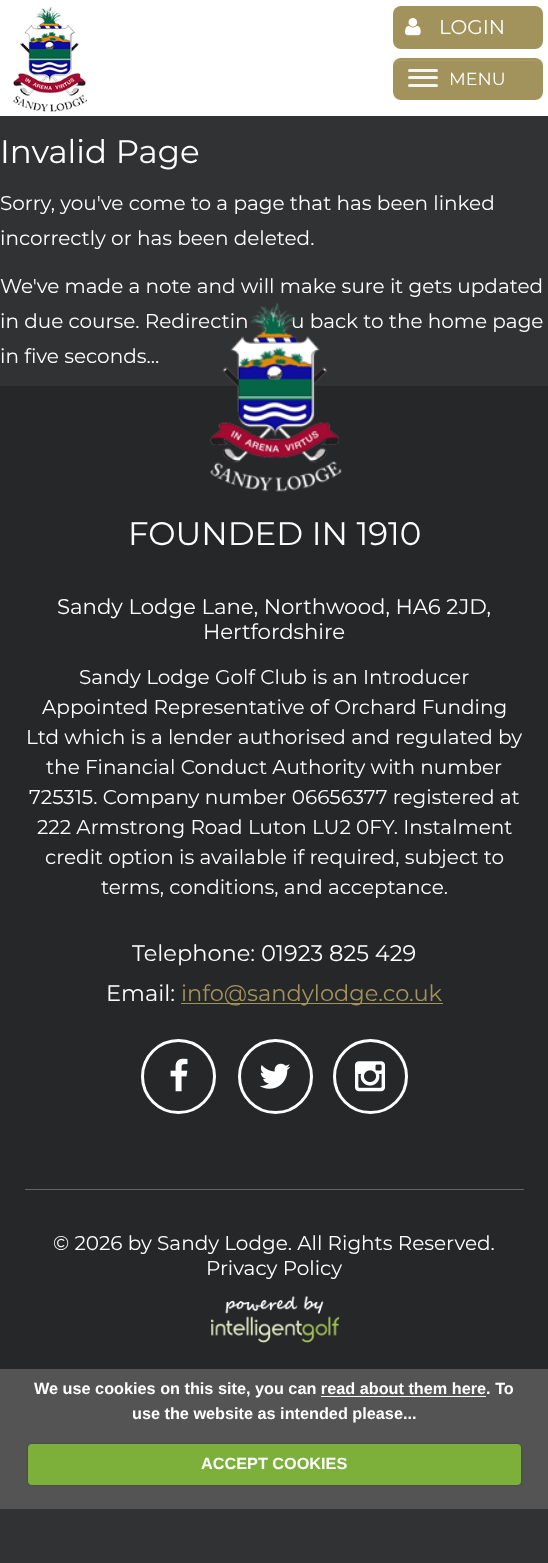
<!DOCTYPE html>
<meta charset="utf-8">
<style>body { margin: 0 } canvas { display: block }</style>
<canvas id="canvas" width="548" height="1563"></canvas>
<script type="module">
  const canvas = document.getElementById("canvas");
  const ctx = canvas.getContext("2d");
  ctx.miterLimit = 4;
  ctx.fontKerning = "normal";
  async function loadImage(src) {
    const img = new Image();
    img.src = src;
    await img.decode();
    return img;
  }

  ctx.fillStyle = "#313234";
  ctx.fillRect(0, 0, 548, 1563);
  ctx.fillStyle = "#ffffff";
  ctx.fillRect(0, 0, 548, 116);
  ctx.drawImage(await loadImage("img1.png"), 13, 6, 74, 106);
  ctx.fillStyle = "#a2935c";
  ctx.beginPath();
  ctx.roundRect(393, 6, 150, 43, 8);
  ctx.fill();
  ctx.drawImage(await loadImage("img2.png"), 405, 18, 16, 18);
  ctx.font = "20px Montserrat";
  ctx.fillStyle = "#ffffff";
  ctx.fillText("LOGIN", 439, 34);
  ctx.fillStyle = "#a2935c";
  ctx.beginPath();
  ctx.roundRect(393, 58, 150, 42, 8);
  ctx.fill();
  ctx.fillStyle = "#ab9e6c";
  ctx.beginPath();
  ctx.moveTo(400, 61);
  ctx.lineTo(535, 61);
  ctx.bezierCurveTo(538, 61, 540, 63, 540, 66);
  ctx.lineTo(540, 65);
  ctx.bezierCurveTo(540, 62, 538, 60, 535, 60);
  ctx.lineTo(400, 60);
  ctx.bezierCurveTo(397, 60, 395, 62, 395, 65);
  ctx.lineTo(395, 66);
  ctx.bezierCurveTo(395, 63, 397, 61, 400, 61);
  ctx.closePath();
  ctx.fill();
  ctx.fillStyle = "#f5f5f5";
  ctx.beginPath();
  ctx.roundRect(408, 69, 30, 3, 1.5);
  ctx.fill();
  ctx.beginPath();
  ctx.roundRect(408, 76, 30, 3, 1.5);
  ctx.fill();
  ctx.beginPath();
  ctx.roundRect(408, 84, 30, 3, 1.5);
  ctx.fill();
  ctx.font = "17.5px Montserrat";
  ctx.fillStyle = "#ffffff";
  ctx.fillText("MENU", 449, 85);
  ctx.font = "32.5px Montserrat";
  ctx.fillText("Invalid Page", 0, 163);
  ctx.font = "20px Montserrat";
  ctx.fillText("Sorry, you've come to a page that has been linked", 0, 210);
  ctx.fillText("incorrectly or has been deleted.", 0, 245);
  ctx.fillText("We've made a note and will make sure it gets updated", 0, 293);
  ctx.fillText("in due course. Redirectin", 0, 328);
  ctx.fillText("u back to the home page", 291, 328);
  ctx.fillText("in five seconds...", 0, 363);
  ctx.fillStyle = "#262729";
  ctx.fillRect(0, 386, 548, 983);
  ctx.drawImage(await loadImage("img3.png"), 210, 302, 132, 190);
  ctx.font = "32.5px Montserrat";
  ctx.fillStyle = "#ffffff";
  ctx.fillText("FOUNDED IN 1910", 128, 545);
  ctx.font = "21.25px Montserrat";
  ctx.fillText("Sandy Lodge Lane, Northwood, HA6 2JD,", 57, 614);
  ctx.fillText("Hertfordshire", 203, 639);
  ctx.font = "20px Montserrat";
  ctx.fillText("Sandy Lodge Golf Club is an Introducer", 79, 684);
  ctx.fillText("Appointed Representative of Orchard Funding", 42, 714);
  ctx.fillText("Ltd which is a lender authorised and regulated by", 26, 744);
  ctx.fillText("the Financial Conduct Authority with number", 46, 774);
  ctx.fillText("725315. Company number 06656377 registered at", 29, 804);
  ctx.fillText("222 Armstrong Road Luton LU2 0FY. Instalment", 37, 834);
  ctx.fillText("credit option is available if required, subject to", 45, 864);
  ctx.fillText("terms, conditions, and acceptance.", 101, 894);
  ctx.font = "22.5px Montserrat";
  ctx.fillText("Telephone: 01923 825 429", 132, 961);
  ctx.fillText("Email:", 106, 1001);
  ctx.fillStyle = "#a2935c";
  ctx.fillRect(181, 1003, 262, 1);
  ctx.fillText("info@sandylodge.co.uk", 181, 1001);
  ctx.beginPath();
  ctx.arc(178.5, 1076.5, 36, 0, Math.PI * 2);
  ctx.strokeStyle = "#ffffff";
  ctx.lineWidth = 3;
  ctx.stroke();
  ctx.drawImage(await loadImage("img4.png"), 170, 1058, 18, 34);
  ctx.beginPath();
  ctx.arc(275.5, 1076.5, 36, 0, Math.PI * 2);
  ctx.stroke();
  ctx.drawImage(await loadImage("img5.png"), 260, 1063, 31, 26);
  ctx.beginPath();
  ctx.arc(370.5, 1076.5, 36, 0, Math.PI * 2);
  ctx.stroke();
  ctx.drawImage(await loadImage("img6.png"), 355, 1061, 30, 31);
  ctx.fillStyle = "#646567";
  ctx.fillRect(25, 1189, 499, 1);
  ctx.font = "20px Montserrat";
  ctx.fillStyle = "#ffffff";
  ctx.fillText("© 2026 by Sandy Lodge. All Rights Reserved.", 53, 1250);
  ctx.fillText("Privacy Policy", 206, 1275);
  ctx.drawImage(await loadImage("img7.png"), 210, 1296, 130, 47);
  ctx.fillStyle = "#545454";
  ctx.fillRect(0, 1369, 548, 140);
  ctx.font = "bold 16.25px Liberation Sans";
  ctx.fillStyle = "#ffffff";
  ctx.fillText("We use cookies on this site, you can read about them here. To", 34, 1394);
  ctx.fillRect(321, 1396, 165, 1);
  ctx.fillText("use the website as intended please...", 132, 1419);
  ctx.fillStyle = "rgba(0, 0, 0, 0.25)";
  ctx.filter = "blur(1px)";
  ctx.beginPath();
  ctx.roundRect(28, 1444, 493, 41, 4);
  ctx.fill();
  ctx.filter = "none";
  ctx.fillStyle = "#7daf3b";
  ctx.beginPath();
  ctx.roundRect(28, 1444, 493, 41, 4);
  ctx.fill();
  ctx.fillStyle = "#ffffff";
  ctx.fillText("ACCEPT COOKIES", 201, 1469);
</script>
